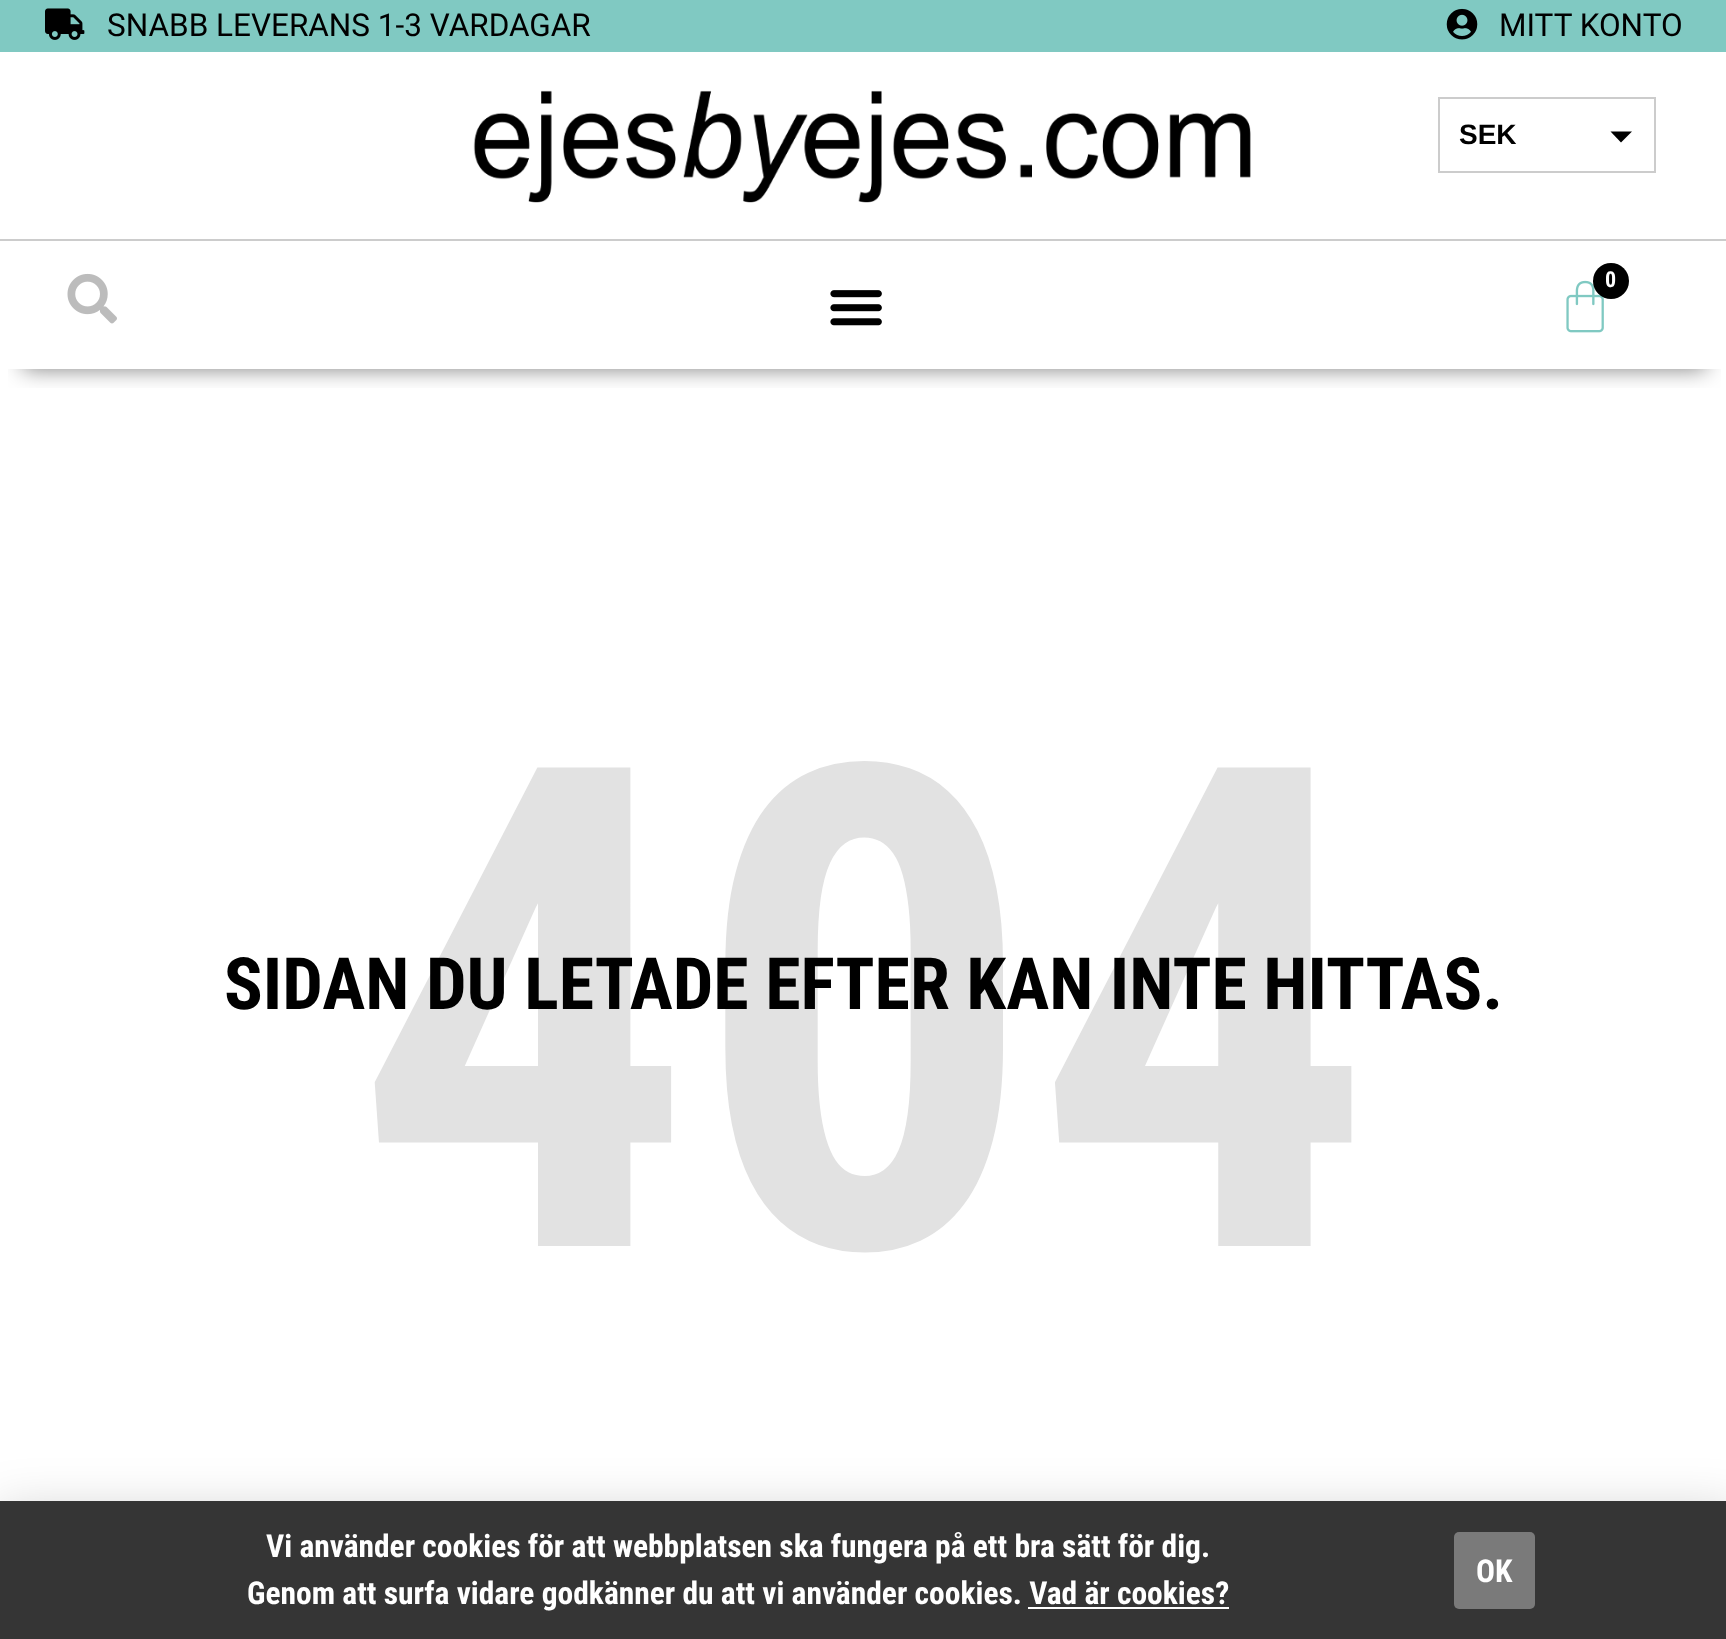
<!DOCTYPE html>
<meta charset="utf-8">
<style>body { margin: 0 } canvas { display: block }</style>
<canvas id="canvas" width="1726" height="1639"></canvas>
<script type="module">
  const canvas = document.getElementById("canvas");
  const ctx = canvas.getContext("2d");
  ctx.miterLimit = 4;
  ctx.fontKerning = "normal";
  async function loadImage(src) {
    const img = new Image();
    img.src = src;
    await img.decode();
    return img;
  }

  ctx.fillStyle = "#ffffff";
  ctx.fillRect(0, 0, 1726, 1639);
  ctx.fillStyle = "#80c9c2";
  ctx.fillRect(0, 0, 1726, 52);
  ctx.drawImage(await loadImage("img1.png"), 45, 8, 40, 32);
  ctx.font = "31.5px Roboto";
  ctx.fillStyle = "#000000";
  ctx.fillText("SNABB LEVERANS 1-3 VARDAGAR", 107, 36);
  ctx.drawImage(await loadImage("img2.png"), 1446, 8, 32, 32);
  ctx.fillText("MITT KONTO", 1499, 36);
  ctx.drawImage(await loadImage("img3.png"), 473, 90, 778, 113);
  ctx.fillStyle = "#cccccc";
  ctx.fillRect(1438, 97, 218, 76);
  ctx.fillStyle = "#ffffff";
  ctx.fillRect(1440, 99, 214, 72);
  ctx.font = "bold 28px Liberation Sans";
  ctx.fillStyle = "#000000";
  ctx.fillText("SEK", 1459, 144);
  ctx.beginPath();
  ctx.moveTo(1610.5, 131.5);
  ctx.lineTo(1632, 131.5);
  ctx.lineTo(1621, 142.5);
  ctx.closePath();
  ctx.fill();
  ctx.save();
  ctx.beginPath();
  ctx.rect(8, 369, 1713, 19);
  ctx.clip();
  ctx.fillStyle = "rgba(0, 0, 0, 0.5)";
  ctx.filter = "blur(11px)";
  ctx.beginPath();
  ctx.rect(23, 284, 1683, 85);
  ctx.fill();
  ctx.filter = "none";
  ctx.restore();
  ctx.fillStyle = "#cccccc";
  ctx.fillRect(0, 239, 1726, 2);
  ctx.drawImage(await loadImage("img4.png"), 67, 273, 50, 51);
  ctx.drawImage(await loadImage("img5.png"), 830, 290, 52, 36);
  ctx.drawImage(await loadImage("img6.png"), 1566, 280, 38, 53);
  ctx.fillStyle = "#000000";
  ctx.beginPath();
  ctx.arc(1611, 281, 18, 0, Math.PI * 2);
  ctx.fill();
  ctx.font = "bold 22px Roboto Condensed";
  ctx.fillStyle = "#ffffff";
  ctx.fillText("0", 1605, 287);
  ctx.font = "bold 673px Roboto Condensed";
  ctx.fillStyle = "#e2e2e2";
  ctx.fillText("404", 354, 1246);
  ctx.font = "bold 72px Roboto Condensed";
  ctx.fillStyle = "#000000";
  ctx.fillText("SIDAN DU LETADE EFTER KAN INTE HITTAS.", 224, 1009);
  ctx.fillStyle = "rgba(0, 0, 0, 0.2)";
  ctx.filter = "blur(26px)";
  ctx.beginPath();
  ctx.rect(-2, 1512, 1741, 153);
  ctx.fill();
  ctx.filter = "none";
  ctx.fillStyle = "#353535";
  ctx.fillRect(0, 1501, 1726, 138);
  ctx.font = "bold 31.5px Roboto Condensed";
  ctx.fillStyle = "#ffffff";
  ctx.fillText("Vi använder cookies för att webbplatsen ska fungera på ett bra sätt för dig.", 266, 1557);
  ctx.fillText("Genom att surfa vidare godkänner du att vi använder cookies. Vad är cookies?", 247, 1604);
  ctx.fillRect(1028, 1607, 201, 2);
  ctx.fillStyle = "#7a7a7a";
  ctx.beginPath();
  ctx.roundRect(1454, 1532, 81, 77, 5);
  ctx.fill();
  ctx.fillStyle = "#ffffff";
  ctx.fillText("OK", 1476, 1582);
</script>
